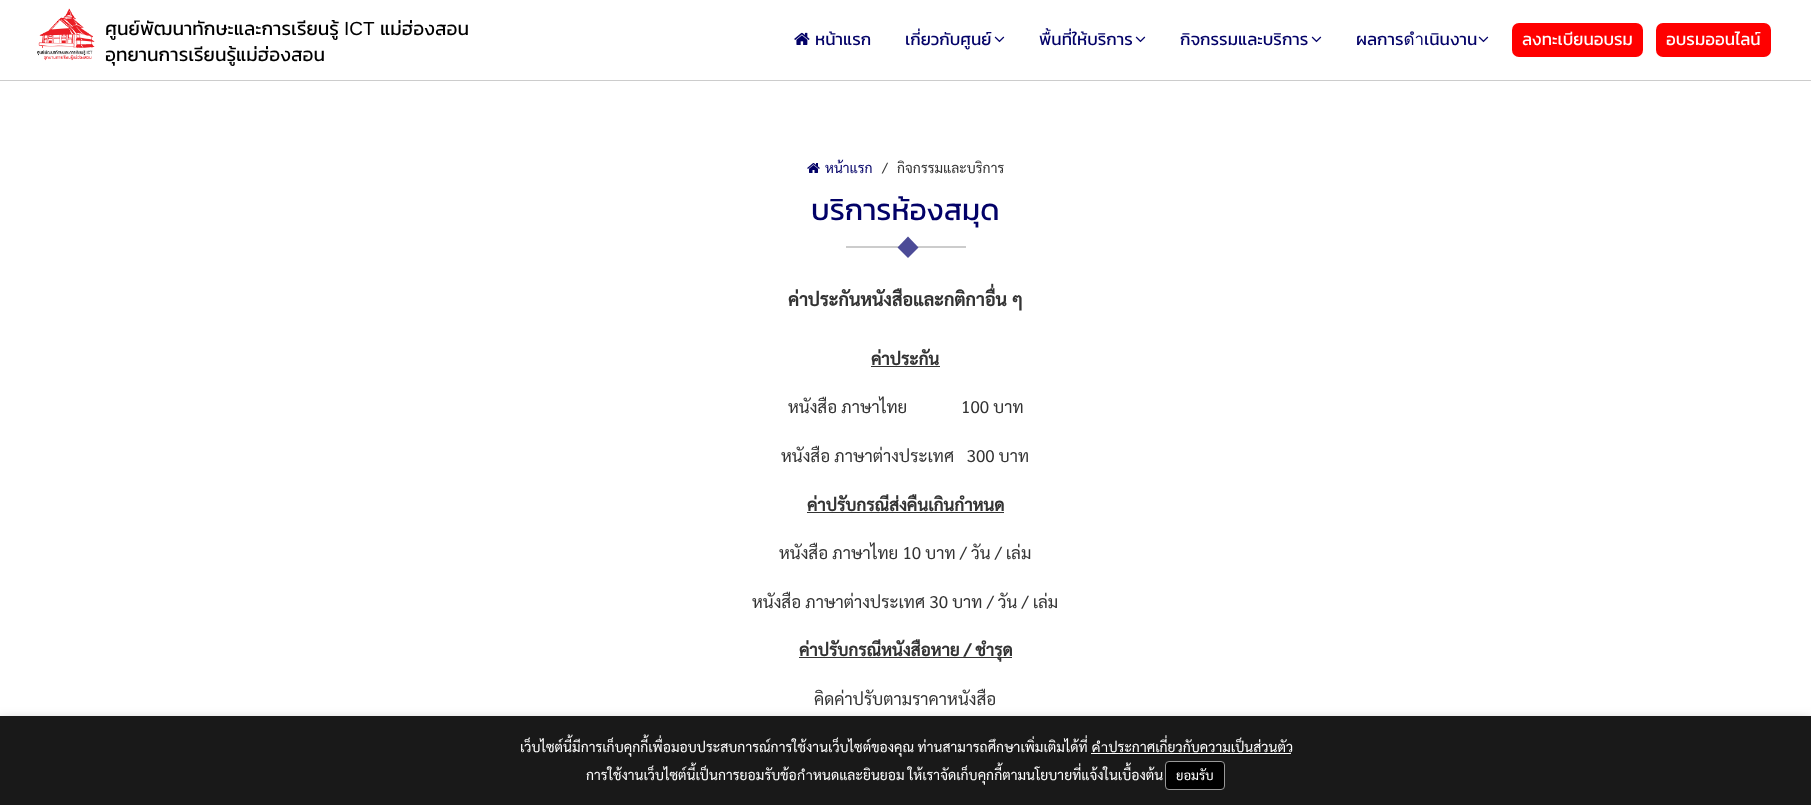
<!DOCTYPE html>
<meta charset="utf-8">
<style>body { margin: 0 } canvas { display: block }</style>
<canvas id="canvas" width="1811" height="805"></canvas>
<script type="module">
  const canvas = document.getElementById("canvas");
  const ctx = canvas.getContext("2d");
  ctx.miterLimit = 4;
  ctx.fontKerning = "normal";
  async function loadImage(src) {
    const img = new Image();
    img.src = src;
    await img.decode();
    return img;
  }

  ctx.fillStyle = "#ffffff";
  ctx.fillRect(0, 0, 1811, 805);
  ctx.save();
  ctx.beginPath();
  ctx.rect(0, 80, 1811, 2);
  ctx.clip();
  ctx.fillStyle = "rgba(0, 0, 0, 0.2)";
  ctx.filter = "blur(0.5px)";
  ctx.beginPath();
  ctx.rect(0, 1, 1811, 80);
  ctx.fill();
  ctx.filter = "none";
  ctx.restore();
  ctx.drawImage(await loadImage("img1.png"), 37, 8, 58, 53);
  ctx.font = "19px Kanit";
  ctx.fillStyle = "#000000";
  ctx.fillText("ศูนย์พัฒนาทักษะและการเรียนรู้", 105, 35);
  ctx.font = "19px Liberation Sans";
  ctx.fillText("ICT", 344, 35);
  ctx.font = "19px Kanit";
  ctx.fillText("แม่ฮ่องสอน", 380, 35);
  ctx.fillText("อุทยานการเรียนรู้แม่ฮ่องสอน", 105, 61);
  ctx.drawImage(await loadImage("img2.png"), 794, 32, 16, 13);
  ctx.font = "17px Kanit";
  ctx.fillStyle = "#020167";
  ctx.fillText("หน้าแรก", 815, 45);
  ctx.fillText("เกี่ยวกับศูนย์", 905, 45);
  ctx.drawImage(await loadImage("img3.png"), 994, 36, 11, 7);
  ctx.fillText("พื้นที่ให้บริการ", 1039, 45);
  ctx.drawImage(await loadImage("img3.png"), 1135, 36, 11, 7);
  ctx.fillText("กิจกรรมและบริการ", 1180, 45);
  ctx.drawImage(await loadImage("img3.png"), 1311, 36, 11, 7);
  ctx.fillText("ผลการดำเนินงาน", 1356, 45);
  ctx.drawImage(await loadImage("img3.png"), 1478, 36, 11, 7);
  ctx.fillStyle = "#ff0000";
  ctx.beginPath();
  ctx.roundRect(1512, 23, 131, 34, 7);
  ctx.fill();
  ctx.fillStyle = "#ffffff";
  ctx.fillText("ลงทะเบียนอบรม", 1522, 45);
  ctx.fillStyle = "#ff0000";
  ctx.beginPath();
  ctx.roundRect(1656, 23, 115, 34, 7);
  ctx.fill();
  ctx.fillStyle = "#ffffff";
  ctx.fillText("อบรมออนไลน์", 1666, 45);
  ctx.drawImage(await loadImage("img4.png"), 807, 163, 13, 10);
  ctx.font = "14px Sarabun";
  ctx.fillStyle = "#020167";
  ctx.fillText("หน้าแรก", 825, 173);
  ctx.fillStyle = "#333333";
  ctx.fillText("/", 882, 173);
  ctx.fillText("กิจกรรมและบริการ", 897, 173);
  ctx.font = "30px Kanit";
  ctx.fillStyle = "#020167";
  ctx.fillText("บริการห้องสมุด", 811, 220);
  ctx.fillStyle = "#cccccc";
  ctx.fillRect(846, 246, 120, 2);
  ctx.fillStyle = "#4c4b97";
  ctx.beginPath();
  ctx.moveTo(908, 236.5);
  ctx.lineTo(918.5, 247.5);
  ctx.lineTo(908, 258);
  ctx.lineTo(897.5, 247.5);
  ctx.closePath();
  ctx.fill();
  ctx.font = "bold 18px Sarabun";
  ctx.fillStyle = "#333333";
  ctx.fillText("ค่าประกันหนังสือและกติกาอื่น ๆ", 788, 306);
  ctx.font = "bold 17px Sarabun";
  ctx.fillText("ค่าประกัน", 871, 365);
  ctx.fillRect(871, 366, 69, 1);
  ctx.font = "17px Sarabun";
  ctx.fillText("หนังสือ ภาษาไทย             100 บาท", 788, 413);
  ctx.fillText("หนังสือ ภาษาต่างประเทศ   300 บาท", 781, 462);
  ctx.font = "bold 17px Sarabun";
  ctx.fillText("ค่าปรับกรณีส่งคืนเกินกําหนด", 807, 511);
  ctx.fillRect(807, 512, 197, 1);
  ctx.font = "17px Sarabun";
  ctx.fillText("หนังสือ ภาษาไทย 10 บาท / วัน / เล่ม", 779, 559);
  ctx.fillText("หนังสือ ภาษาต่างประเทศ 30 บาท / วัน / เล่ม", 752, 608);
  ctx.fillRect(799, 657, 213, 1);
  ctx.font = "bold 17px Sarabun";
  ctx.fillText("ค่าปรับกรณีหนังสือหาย / ชำรุด", 799, 656);
  ctx.font = "17px Sarabun";
  ctx.fillText("คิดค่าปรับตามราคาหนังสือ", 814, 705);
  ctx.fillStyle = "rgba(0, 0, 0, 0.7)";
  ctx.filter = "blur(8.5px)";
  ctx.beginPath();
  ctx.rect(-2, 727, 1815, 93);
  ctx.fill();
  ctx.filter = "none";
  ctx.fillStyle = "#191919";
  ctx.fillRect(0, 716, 1811, 89);
  ctx.font = "14px Sarabun";
  ctx.fillStyle = "#ffffff";
  ctx.fillText("เว็บไซต์นี้มีการเก็บคุกกี้เพื่อมอบประสบการณ์การใช้งานเว็บไซต์ของคุณ ท่านสามารถศึกษาเพิ่มเติมได้ที่ คำประกาศเกี่ยวกับความเป็นส่วนตัว", 520, 752);
  ctx.fillRect(1091, 753, 200, 1);
  ctx.fillText("การใช้งานเว็บไซต์นี้เป็นการยอมรับข้อกำหนดและยินยอม ให้เราจัดเก็บคุกกี้ตามนโยบายที่แจ้งในเบื้องต้น", 586, 780);
  ctx.fillStyle = "#000000";
  ctx.beginPath();
  ctx.roundRect(1165.5, 761.5, 59, 28, 3.5);
  ctx.fill();
  ctx.strokeStyle = "#999999";
  ctx.stroke();
  ctx.font = "13px Sarabun";
  ctx.fillStyle = "#ffffff";
  ctx.fillText("ยอมรับ", 1176, 780);
</script>
